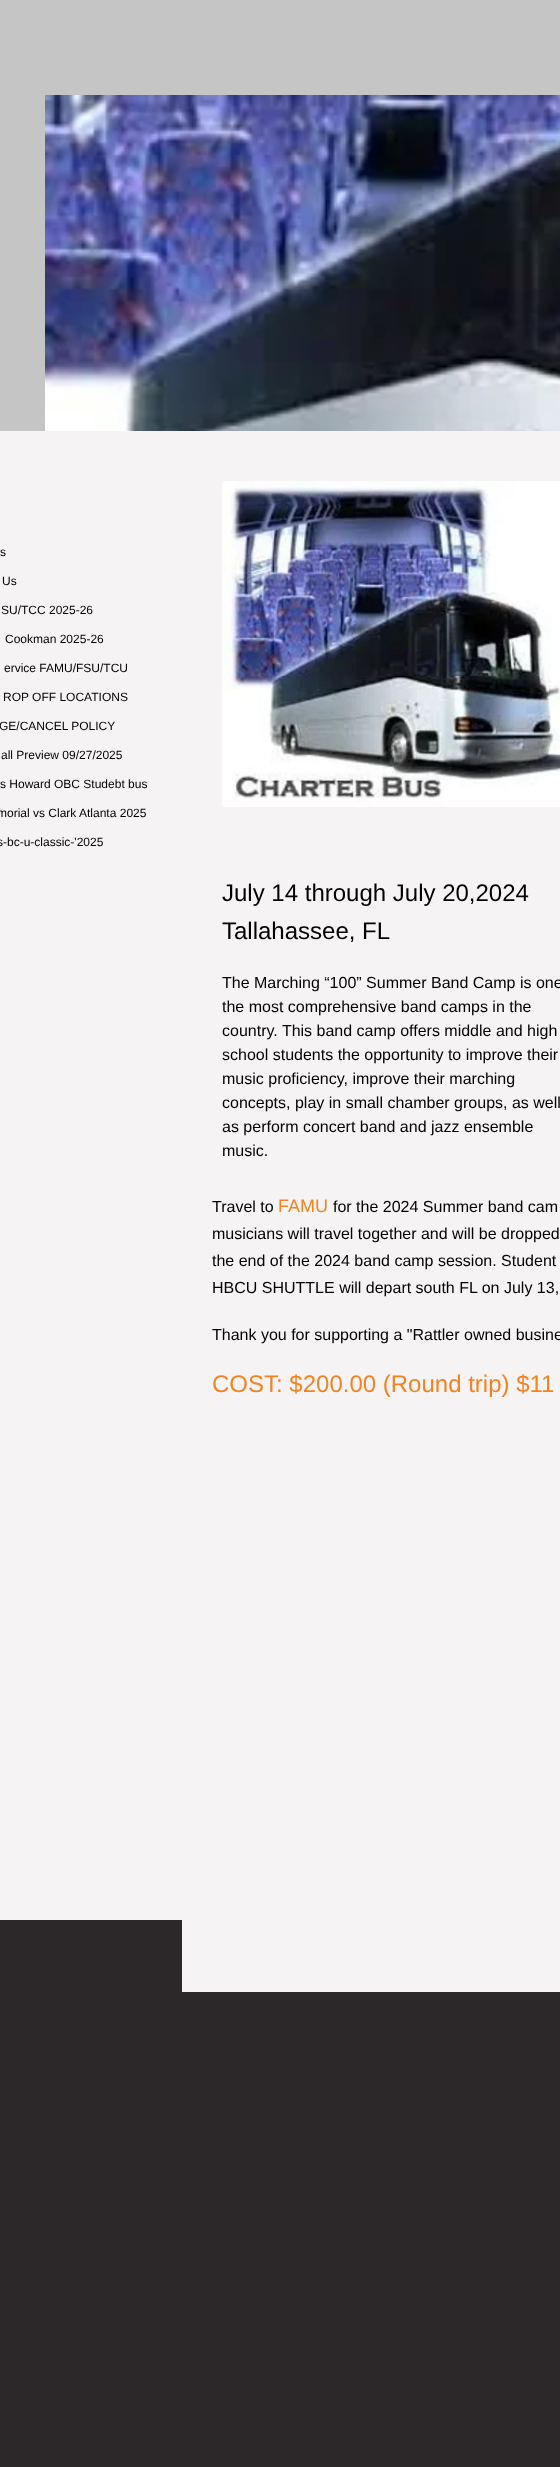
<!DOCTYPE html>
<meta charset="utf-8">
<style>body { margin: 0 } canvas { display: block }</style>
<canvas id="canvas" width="560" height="2467"></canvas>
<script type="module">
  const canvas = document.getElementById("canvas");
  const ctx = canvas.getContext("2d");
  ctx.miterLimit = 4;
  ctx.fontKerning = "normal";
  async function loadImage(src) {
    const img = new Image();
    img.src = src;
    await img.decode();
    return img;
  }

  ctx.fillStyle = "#2c2729";
  ctx.fillRect(0, 0, 560, 2467);
  ctx.fillStyle = "#c6c5c5";
  ctx.fillRect(0, 0, 560, 431);
  ctx.drawImage(await loadImage("img1.png"), 45, 95, 515, 336);
  ctx.fillStyle = "#f5f3f4";
  ctx.fillRect(0, 431, 182, 1489);
  ctx.font = "12px Liberation Sans";
  ctx.fillStyle = "#000000";
  ctx.fillText("s", 0, 556);
  ctx.fillText("Us", 2, 585);
  ctx.fillText("SU/TCC 2025-26", 1, 614);
  ctx.fillText("Cookman 2025-26", 5, 643);
  ctx.fillText("ervice FAMU/FSU/TCU", 4, 672);
  ctx.fillText("ROP OFF LOCATIONS", 3, 701);
  ctx.fillText("GE/CANCEL POLICY", -1, 730);
  ctx.fillText("all Preview 09/27/2025", 1, 759);
  ctx.fillText("s Howard OBC Studebt bus", 0, 788);
  ctx.fillText("morial vs Clark Atlanta 2025", -3, 817);
  ctx.fillText("s-bc-u-classic-'2025", -3, 846);
  ctx.fillStyle = "#f5f3f4";
  ctx.fillRect(182, 431, 378, 1561);
  ctx.drawImage(await loadImage("img2.png"), 222, 481, 338, 326);
  ctx.font = "24px Liberation Sans";
  ctx.fillStyle = "#000000";
  ctx.fillText("July 14 through July 20,2024", 222, 901);
  ctx.fillText("Tallahassee, FL", 222, 939);
  ctx.font = "16px Liberation Sans";
  ctx.fillText("The Marching “100” Summer Band Camp is one", 222, 988);
  ctx.fillText("the most comprehensive band camps in the", 222, 1012);
  ctx.fillText("country. This band camp offers middle and high", 222, 1036);
  ctx.fillText("school students the opportunity to improve their", 222, 1060);
  ctx.fillText("music proficiency, improve their marching", 222, 1084);
  ctx.fillText("concepts, play in small chamber groups, as well", 222, 1108);
  ctx.fillText("as perform concert band and jazz ensemble", 222, 1132);
  ctx.fillText("music.", 222, 1156);
  ctx.fillText("Travel to", 212, 1212);
  ctx.font = "18px Liberation Sans";
  ctx.fillStyle = "#f5821f";
  ctx.fillText("FAMU", 278, 1212);
  ctx.font = "16px Liberation Sans";
  ctx.fillStyle = "#000000";
  ctx.fillText("for the 2024 Summer band cam", 333, 1212);
  ctx.fillText("musicians will travel together and will be dropped", 212, 1239);
  ctx.fillText("the end of the 2024 band camp session. Student", 212, 1266);
  ctx.fillText("HBCU SHUTTLE will depart south FL on July 13,", 212, 1293);
  ctx.fillText("Thank you for supporting a \"Rattler owned busine", 212, 1340);
  ctx.font = "24px Liberation Sans";
  ctx.fillStyle = "#f5821f";
  ctx.fillText("COST: $200.00 (Round trip) $11", 212, 1392);
</script>
